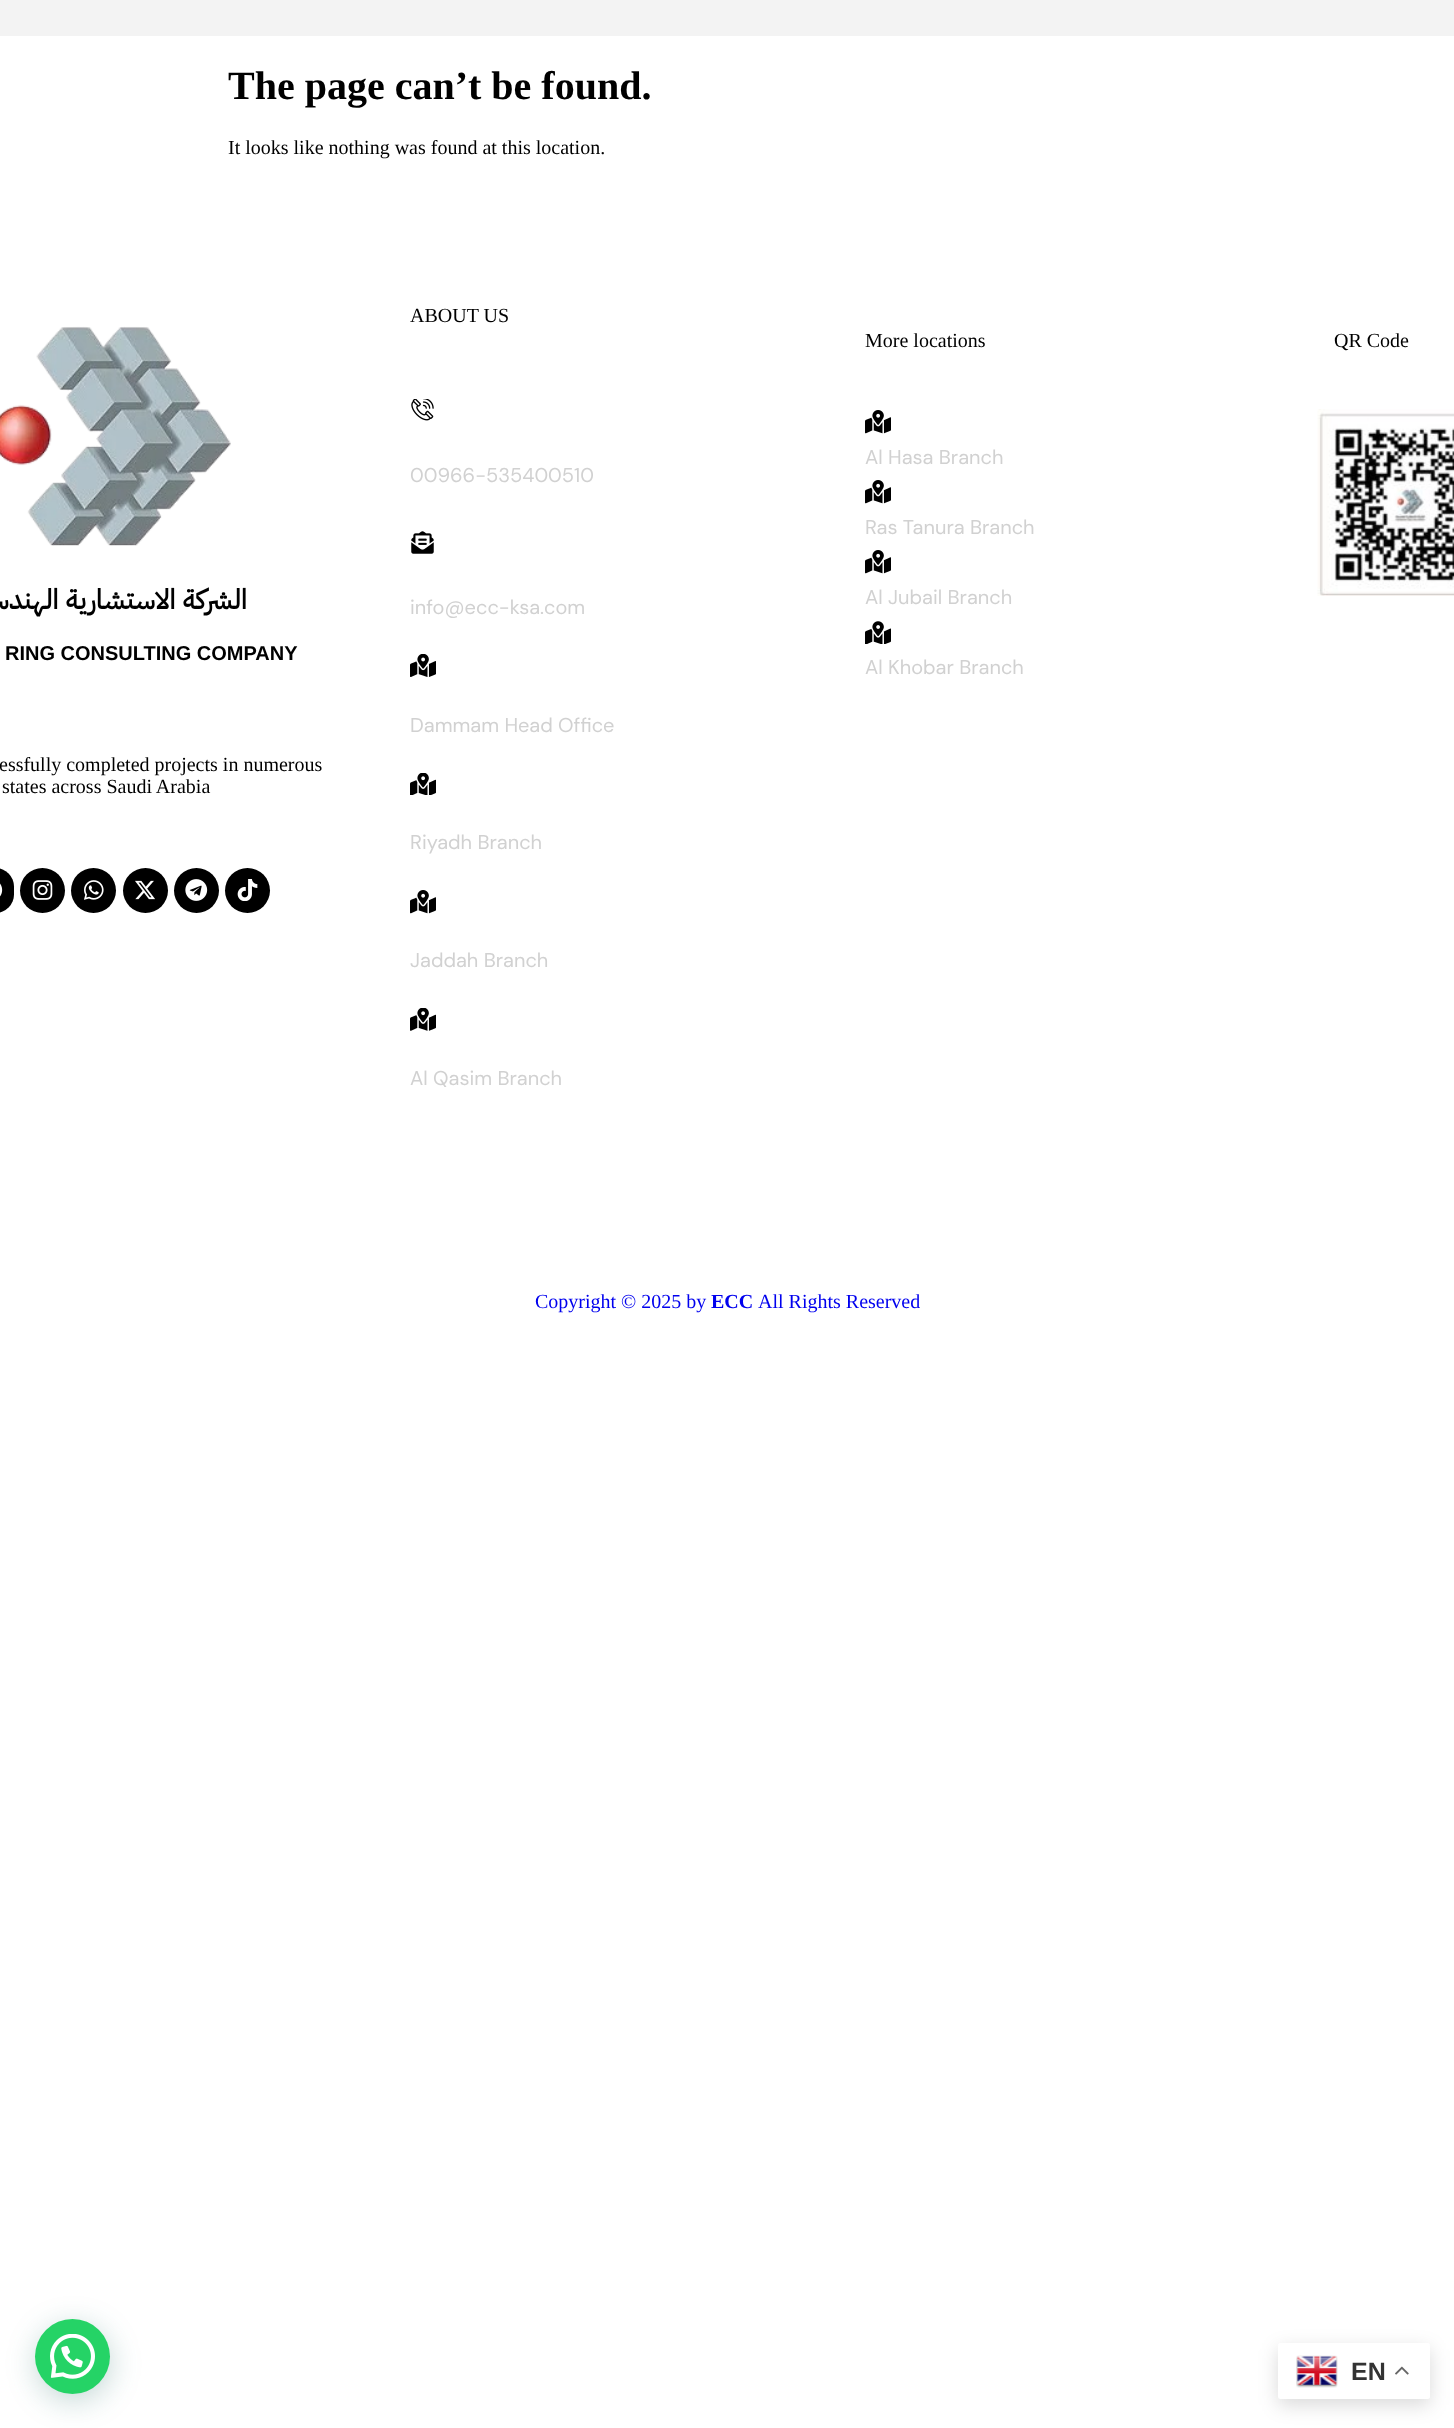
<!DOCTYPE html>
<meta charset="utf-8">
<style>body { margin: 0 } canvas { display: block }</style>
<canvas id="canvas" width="1454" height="2428"></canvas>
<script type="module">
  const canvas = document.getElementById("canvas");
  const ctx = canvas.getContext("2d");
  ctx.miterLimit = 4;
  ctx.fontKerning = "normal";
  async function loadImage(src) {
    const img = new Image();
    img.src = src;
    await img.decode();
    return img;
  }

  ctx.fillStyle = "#ffffff";
  ctx.fillRect(0, 0, 1454, 2428);
  ctx.fillStyle = "#f3f3f3";
  ctx.fillRect(0, 0, 1454, 36);
  ctx.font = "bold 40px Liberation Serif";
  ctx.fillStyle = "#000000";
  ctx.fillText("The page can’t be found.", 228, 99);
  ctx.font = "20px Liberation Serif";
  ctx.fillText("It looks like nothing was found at this location.", 228, 154);
  ctx.drawImage(await loadImage("img1.png"), 0, 326, 231, 220);
  ctx.wordSpacing = "1px";
  ctx.direction = "rtl";
  ctx.font = "bold 27.5px IBM Plex Sans Arabic";
  ctx.fillText("الشركة الاستشارية الهندسية", 247, 609);
  ctx.wordSpacing = "0px";
  ctx.direction = "ltr";
  ctx.font = "bold 20px Liberation Sans";
  ctx.fillText("RING CONSULTING COMPANY", 5, 660);
  ctx.font = "20px Liberation Serif";
  ctx.fillText("essfully completed projects in numerous", -1, 771);
  ctx.fillText("states across Saudi Arabia", 2, 793);
  ctx.beginPath();
  ctx.roundRect(-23, 868, 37, 45, 22.5);
  ctx.fill();
  ctx.drawImage(await loadImage("img2.png"), 0, 883, 3, 14);
  ctx.beginPath();
  ctx.arc(42.5, 890.5, 22.5, 0, Math.PI * 2);
  ctx.fill();
  ctx.drawImage(await loadImage("img3.png"), 32, 880, 21, 20);
  ctx.beginPath();
  ctx.arc(93.5, 890.5, 22.5, 0, Math.PI * 2);
  ctx.fill();
  ctx.drawImage(await loadImage("img4.png"), 84, 880, 20, 20);
  ctx.beginPath();
  ctx.arc(145.5, 890.5, 22.5, 0, Math.PI * 2);
  ctx.fill();
  ctx.drawImage(await loadImage("img5.png"), 135, 880, 20, 20);
  ctx.beginPath();
  ctx.arc(196.5, 890.5, 22.5, 0, Math.PI * 2);
  ctx.fill();
  ctx.drawImage(await loadImage("img6.png"), 185, 879, 23, 22);
  ctx.beginPath();
  ctx.arc(247.5, 890.5, 22.5, 0, Math.PI * 2);
  ctx.fill();
  ctx.drawImage(await loadImage("img7.png"), 237, 879, 21, 22);
  ctx.fillText("ABOUT US", 410, 322);
  ctx.drawImage(await loadImage("img8.png"), 411, 399, 23, 22);
  ctx.font = "20px DM Sans";
  ctx.fillStyle = "#d1d1d1";
  ctx.fillText("00966-535400510", 410, 482);
  ctx.drawImage(await loadImage("img9.png"), 411, 531, 23, 23);
  ctx.fillText("info@ecc-ksa.com", 410, 614);
  ctx.drawImage(await loadImage("img10.png"), 410, 654, 26, 23);
  ctx.fillText("Dammam Head Office", 410, 732);
  ctx.drawImage(await loadImage("img11.png"), 410, 773, 26, 22);
  ctx.fillText("Riyadh Branch", 410, 849);
  ctx.drawImage(await loadImage("img12.png"), 410, 890, 26, 24);
  ctx.fillText("Jaddah Branch", 410, 967);
  ctx.drawImage(await loadImage("img13.png"), 410, 1008, 26, 23);
  ctx.fillText("Al Qasim Branch", 410, 1085);
  ctx.font = "20px Liberation Serif";
  ctx.fillStyle = "#000000";
  ctx.fillText("More locations", 865, 347);
  ctx.drawImage(await loadImage("img12.png"), 865, 410, 26, 24);
  ctx.font = "20px DM Sans";
  ctx.fillStyle = "#d1d1d1";
  ctx.fillText("Al Hasa Branch", 865, 464);
  ctx.drawImage(await loadImage("img12.png"), 865, 480, 26, 24);
  ctx.fillText("Ras Tanura Branch", 865, 534);
  ctx.drawImage(await loadImage("img12.png"), 865, 550, 26, 24);
  ctx.fillText("Al Jubail Branch", 865, 604);
  ctx.drawImage(await loadImage("img14.png"), 865, 621, 26, 23);
  ctx.fillText("Al Khobar Branch", 865, 674);
  ctx.font = "20px Liberation Serif";
  ctx.fillStyle = "#000000";
  ctx.fillText("QR Code", 1334, 347);
  ctx.drawImage(await loadImage("img15.png"), 1317, 409, 137, 187);
  ctx.fillStyle = "#0000ee";
  ctx.fillText("Copyright © 2025 by", 535, 1308);
  ctx.font = "bold 20px Liberation Serif";
  ctx.fillText("ECC", 711, 1308);
  ctx.font = "20px Liberation Serif";
  ctx.fillText("All Rights Reserved", 758, 1308);
  ctx.fillStyle = "rgba(7, 94, 84, 0.24)";
  ctx.filter = "blur(15px)";
  ctx.beginPath();
  ctx.roundRect(36, 2326, 75, 75, 37.5);
  ctx.fill();
  ctx.filter = "none";
  ctx.fillStyle = "#25d366";
  ctx.beginPath();
  ctx.arc(72.5, 2356.5, 37.5, 0, Math.PI * 2);
  ctx.fill();
  ctx.drawImage(await loadImage("img16.png"), 50, 2334, 45, 45);
  ctx.fillStyle = "rgba(0, 0, 0, 0.15)";
  ctx.filter = "blur(9.5px)";
  ctx.beginPath();
  ctx.roundRect(1278, 2349, 152, 56, 2.5);
  ctx.fill();
  ctx.filter = "none";
  ctx.fillStyle = "#ffffff";
  ctx.beginPath();
  ctx.roundRect(1278, 2343, 152, 56, 2.5);
  ctx.fill();
  ctx.drawImage(await loadImage("img17.png"), 1296, 2355, 42, 33);
  ctx.font = "bold 25px Liberation Sans";
  ctx.fillStyle = "#333333";
  ctx.fillText("EN", 1351, 2380);
  ctx.drawImage(await loadImage("img18.png"), 1395, 2366, 14, 9);
</script>
